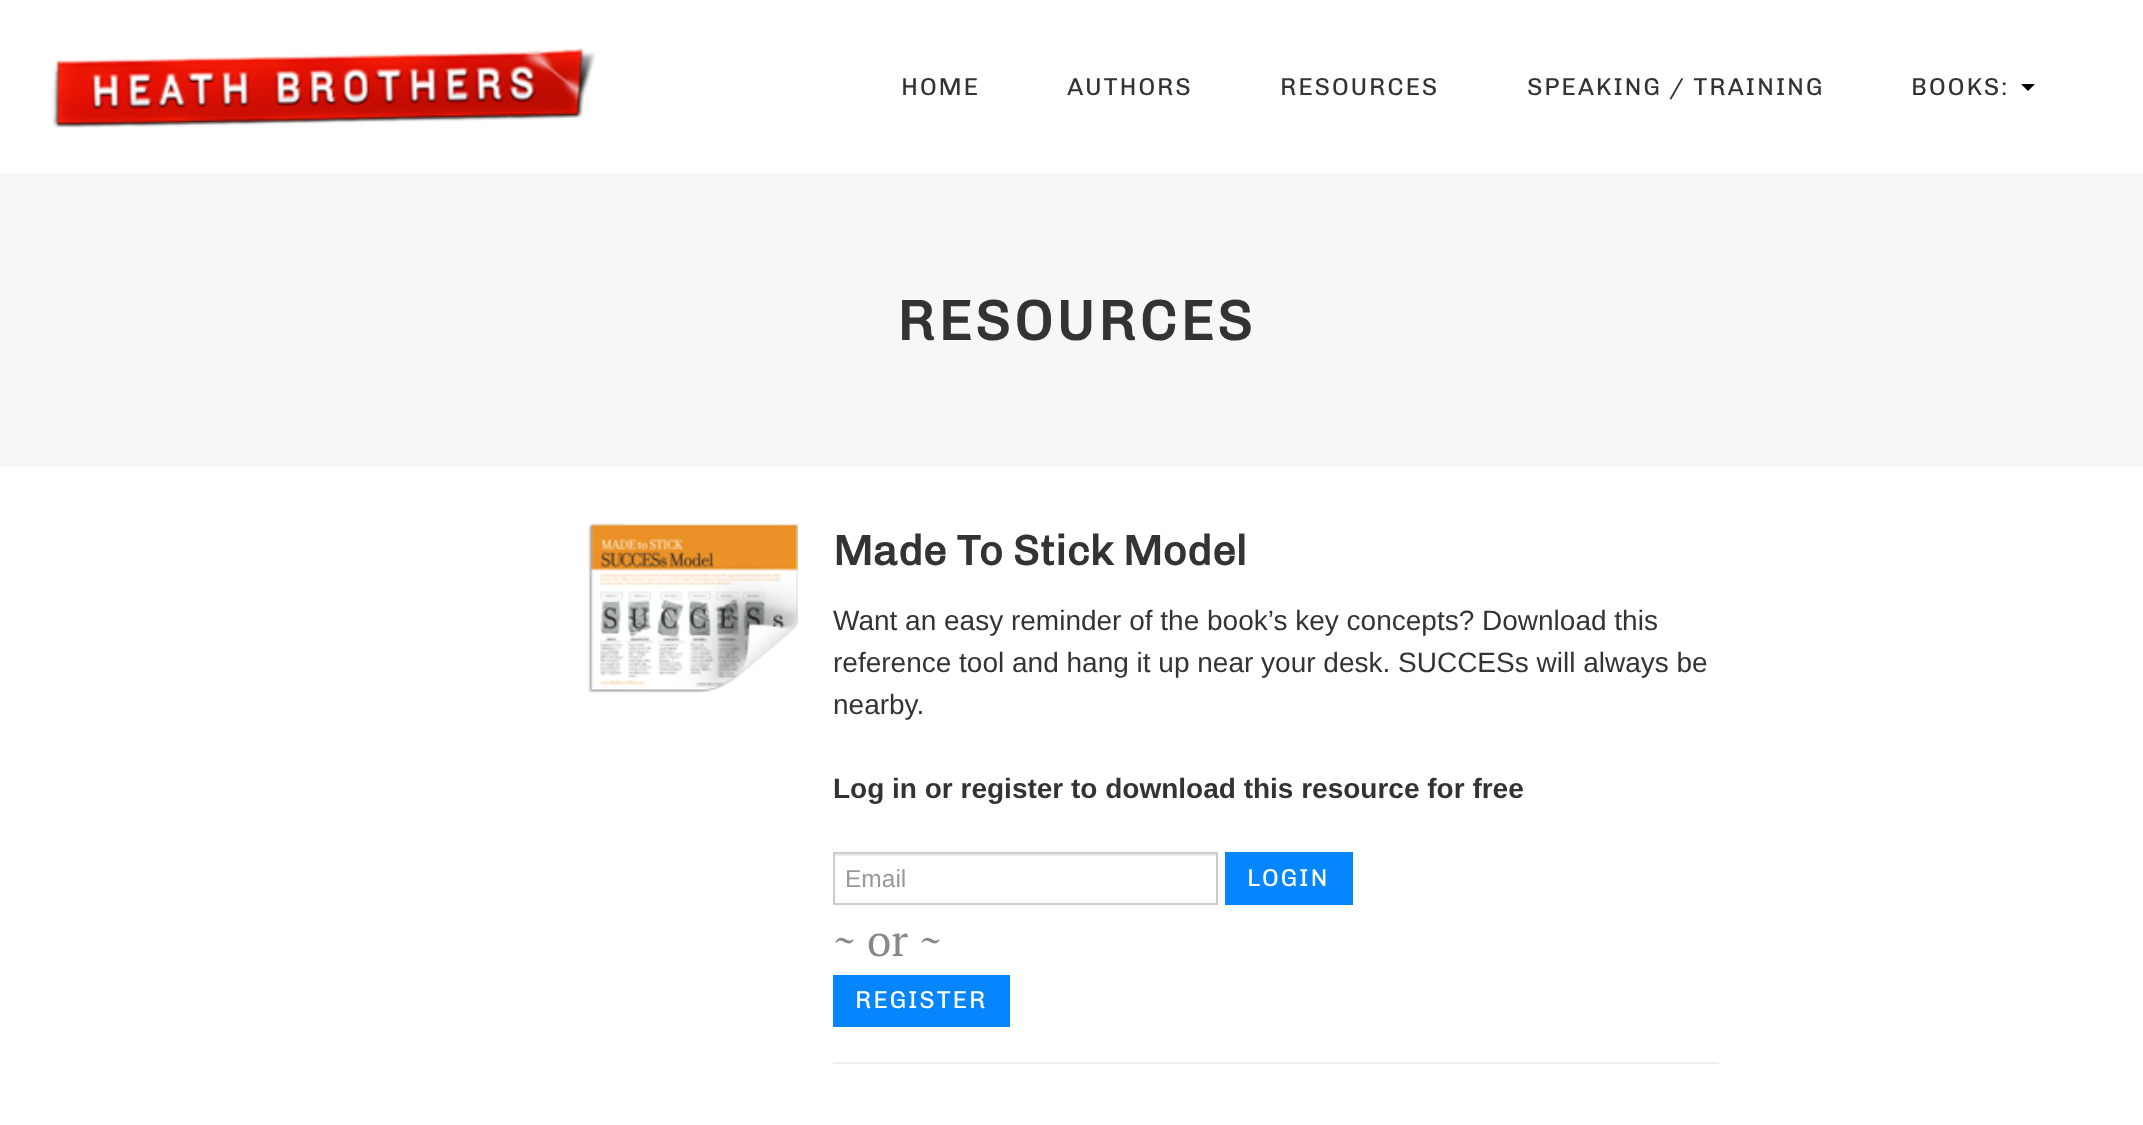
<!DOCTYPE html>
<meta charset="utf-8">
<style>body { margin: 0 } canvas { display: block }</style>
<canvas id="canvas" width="2143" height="1125"></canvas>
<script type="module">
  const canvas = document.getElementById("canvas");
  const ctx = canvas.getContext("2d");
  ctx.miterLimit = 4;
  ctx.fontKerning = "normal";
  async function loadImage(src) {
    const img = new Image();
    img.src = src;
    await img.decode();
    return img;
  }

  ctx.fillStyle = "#ffffff";
  ctx.fillRect(0, 0, 2143, 1125);
  ctx.drawImage(await loadImage("img1.png"), 52, 47, 544, 81);
  ctx.letterSpacing = "1.75px";
  ctx.font = "500 24.5px Chivo";
  ctx.fillStyle = "#333333";
  ctx.fillText("HOME", 901, 95);
  ctx.fillText("AUTHORS", 1067, 95);
  ctx.fillText("RESOURCES", 1280, 95);
  ctx.fillText("SPEAKING / TRAINING", 1527, 95);
  ctx.fillText("BOOKS:", 1911, 95);
  ctx.fillStyle = "#000000";
  ctx.beginPath();
  ctx.moveTo(2021, 84);
  ctx.lineTo(2035, 84);
  ctx.lineTo(2028, 91);
  ctx.closePath();
  ctx.fill();
  ctx.fillStyle = "#f7f7f7";
  ctx.fillRect(0, 173, 2143, 294);
  ctx.letterSpacing = "3.5px";
  ctx.font = "bold 56px Chivo";
  ctx.fillStyle = "#333333";
  ctx.fillText("RESOURCES", 897, 340);
  ctx.drawImage(await loadImage("img2.png"), 588, 523, 210, 170);
  ctx.letterSpacing = "0px";
  ctx.font = "bold 42px Chivo";
  ctx.fillText("Made To Stick Model", 833, 565);
  ctx.font = "28px Liberation Sans";
  ctx.fillText("Want an easy reminder of the book’s key concepts? Download this", 833, 630);
  ctx.fillText("reference tool and hang it up near your desk. SUCCESs will always be", 833, 672);
  ctx.fillText("nearby.", 833, 714);
  ctx.font = "bold 28px Liberation Sans";
  ctx.fillText("Log in or register to download this resource for free", 833, 798);
  ctx.fillStyle = "#ececec";
  ctx.fillRect(835, 854, 381, 2);
  ctx.strokeStyle = "#cccccc";
  ctx.lineWidth = 2;
  ctx.strokeRect(834, 853, 383, 51);
  ctx.font = "24.5px Liberation Sans";
  ctx.fillStyle = "#999999";
  ctx.fillText("Email", 845, 887);
  ctx.fillStyle = "#0586ff";
  ctx.fillRect(1225, 852, 128, 53);
  ctx.letterSpacing = "1.75px";
  ctx.font = "500 24.5px Chivo";
  ctx.fillStyle = "#ffffff";
  ctx.fillText("LOGIN", 1247, 886);
  ctx.letterSpacing = "0px";
  ctx.font = "44px PT Serif";
  ctx.fillStyle = "#888888";
  ctx.fillText("~ or ~", 833, 956);
  ctx.fillStyle = "#0586ff";
  ctx.fillRect(833, 975, 177, 52);
  ctx.letterSpacing = "1.75px";
  ctx.font = "500 24.5px Chivo";
  ctx.fillStyle = "#ffffff";
  ctx.fillText("REGISTER", 855, 1008);
  ctx.fillStyle = "#eeeeee";
  ctx.fillRect(833, 1062, 886, 2);
</script>
